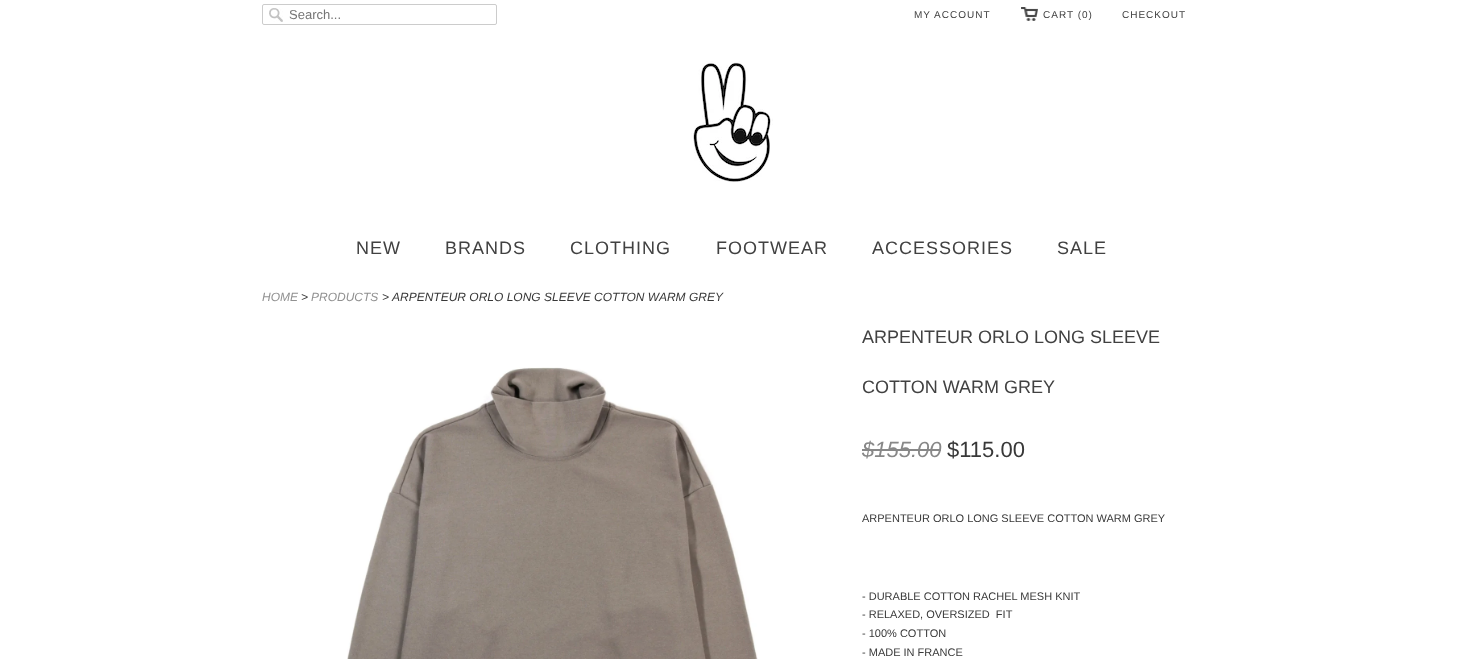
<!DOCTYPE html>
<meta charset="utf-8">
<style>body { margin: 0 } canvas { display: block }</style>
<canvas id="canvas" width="1463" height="659"></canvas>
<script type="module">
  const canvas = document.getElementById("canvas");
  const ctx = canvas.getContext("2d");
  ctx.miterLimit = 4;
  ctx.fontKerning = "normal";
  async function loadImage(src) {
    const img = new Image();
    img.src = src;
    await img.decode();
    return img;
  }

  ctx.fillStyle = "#ffffff";
  ctx.fillRect(0, 0, 1463, 659);
  ctx.drawImage(await loadImage("img1.png"), 269, 8, 14, 14);
  ctx.beginPath();
  ctx.roundRect(262.5, 4.5, 234, 20, 1.5);
  ctx.strokeStyle = "#cccccc";
  ctx.stroke();
  ctx.font = "13px Liberation Sans";
  ctx.fillStyle = "#757575";
  ctx.fillText("Search...", 289, 19);
  ctx.letterSpacing = "1px";
  ctx.font = "10px Liberation Sans";
  ctx.fillStyle = "#414141";
  ctx.fillText("MY ACCOUNT", 914, 18);
  ctx.drawImage(await loadImage("img2.png"), 1021, 7, 17, 14);
  ctx.fillText("CART (0)", 1043, 18);
  ctx.fillText("CHECKOUT", 1122, 18);
  ctx.drawImage(await loadImage("img3.png"), 691, 61, 82, 121);
  ctx.font = "18px Liberation Sans";
  ctx.fillText("NEW", 356, 254);
  ctx.fillText("BRANDS", 445, 254);
  ctx.fillText("CLOTHING", 570, 254);
  ctx.fillText("FOOTWEAR", 716, 254);
  ctx.fillText("ACCESSORIES", 872, 254);
  ctx.fillText("SALE", 1057, 254);
  ctx.letterSpacing = "0px";
  ctx.font = "italic 12px Liberation Sans";
  ctx.fillStyle = "#919191";
  ctx.fillText("HOME", 262, 301);
  ctx.fillStyle = "#383838";
  ctx.fillText(">", 301, 301);
  ctx.fillStyle = "#919191";
  ctx.fillText("PRODUCTS", 311, 301);
  ctx.fillStyle = "#383838";
  ctx.fillText(">", 382, 301);
  ctx.fillText("ARPENTEUR ORLO LONG SLEEVE COTTON WARM GREY", 392, 301);
  ctx.drawImage(await loadImage("img4.png"), 347, 367, 411, 292);
  ctx.font = "18px Liberation Sans";
  ctx.fillStyle = "#414141";
  ctx.fillText("ARPENTEUR ORLO LONG SLEEVE", 862, 343);
  ctx.fillText("COTTON WARM GREY", 862, 393);
  ctx.font = "italic 22px Liberation Sans";
  ctx.fillStyle = "#888888";
  ctx.fillText("$155.00", 862, 457);
  ctx.fillRect(862, 449, 79, 2);
  ctx.font = "22px Liberation Sans";
  ctx.fillStyle = "#383838";
  ctx.fillText("$115.00", 947, 457);
  ctx.font = "11px Liberation Sans";
  ctx.fillText("ARPENTEUR ORLO LONG SLEEVE COTTON WARM GREY", 862, 522);
  ctx.fillText("- DURABLE COTTON RACHEL MESH KNIT", 862, 600);
  ctx.fillText("- RELAXED, OVERSIZED  FIT", 862, 618);
  ctx.fillText("- 100% COTTON", 862, 637);
  ctx.fillText("- MADE IN FRANCE", 862, 656);
</script>
